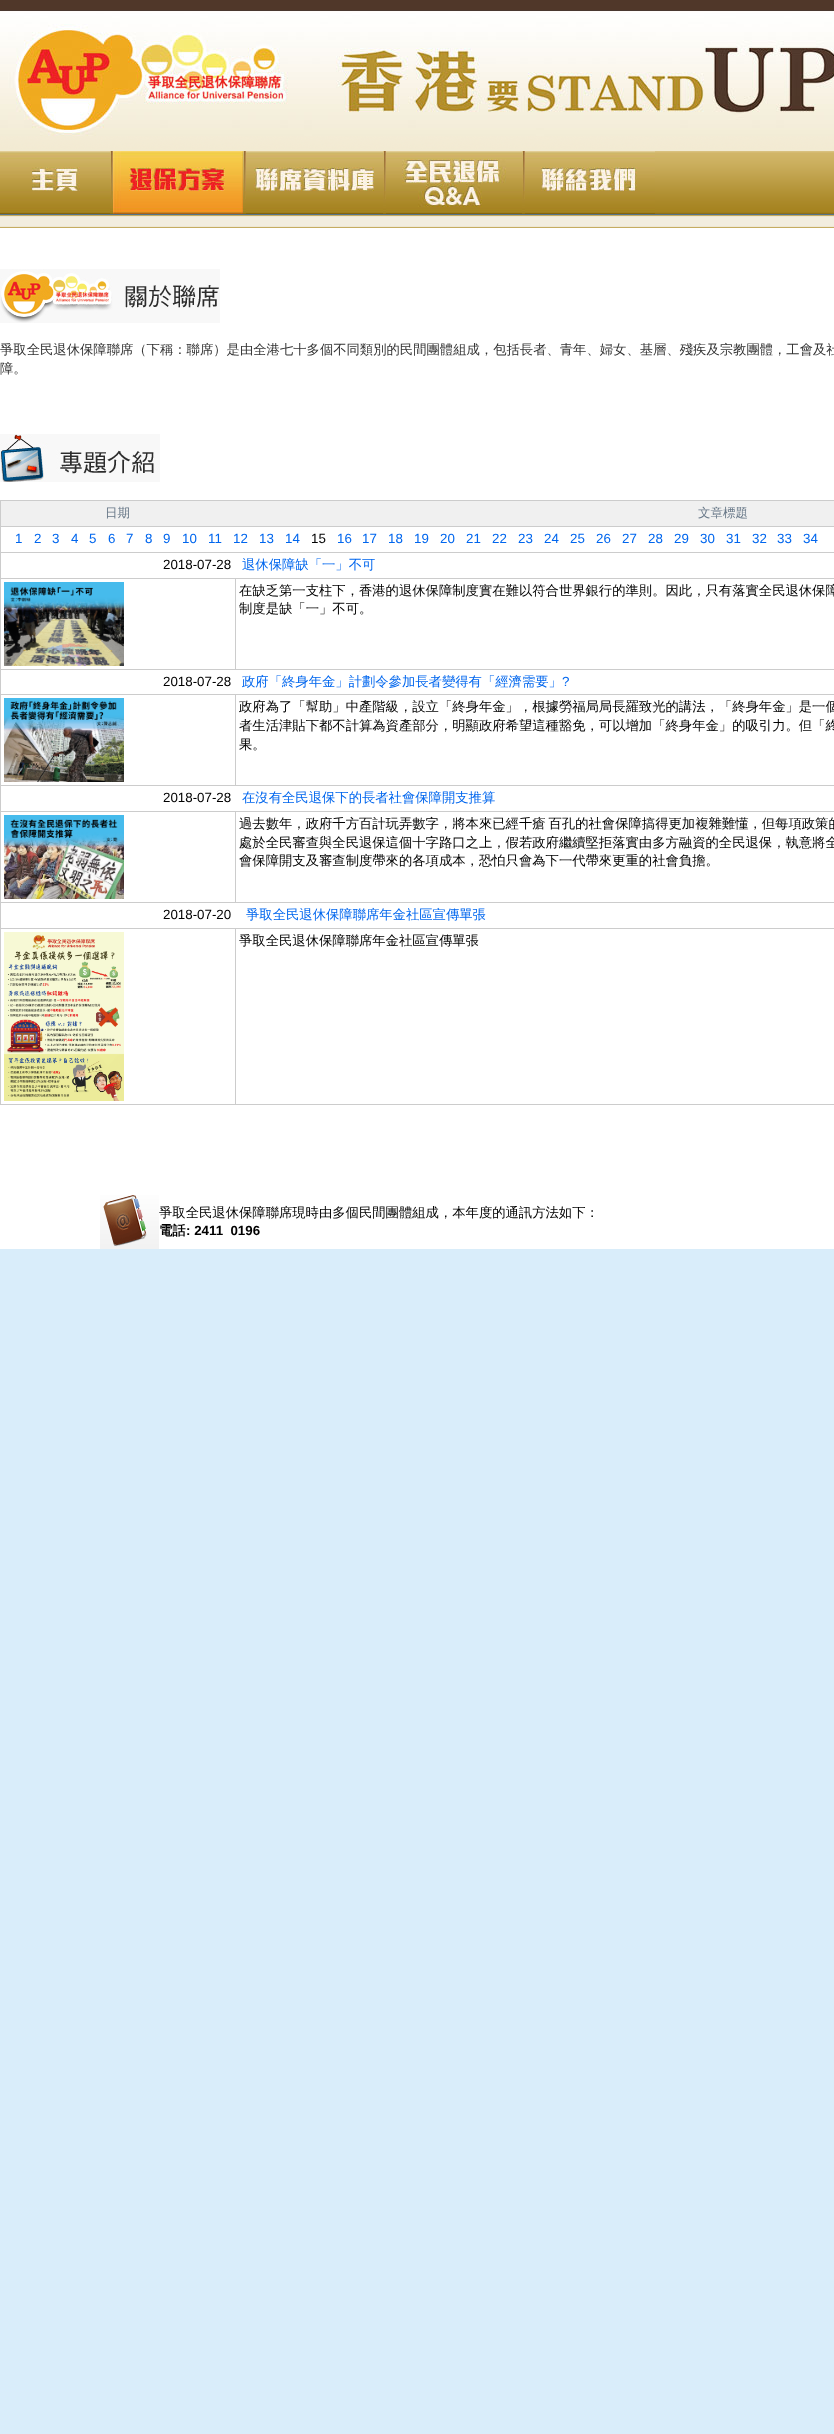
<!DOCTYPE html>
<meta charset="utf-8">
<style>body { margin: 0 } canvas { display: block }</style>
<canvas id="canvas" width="834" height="2434"></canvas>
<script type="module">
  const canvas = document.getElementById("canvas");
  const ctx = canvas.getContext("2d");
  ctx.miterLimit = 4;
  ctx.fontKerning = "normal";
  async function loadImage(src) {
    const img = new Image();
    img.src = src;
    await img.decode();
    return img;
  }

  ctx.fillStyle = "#d9edfa";
  ctx.fillRect(0, 0, 834, 2434);
  ctx.drawImage(await loadImage("img1.png"), 0, 0, 834, 1195);
  ctx.drawImage(await loadImage("img2.png"), 0, 10, 834, 126);
  ctx.drawImage(await loadImage("img3.png"), 0, 151, 110, 63);
  ctx.drawImage(await loadImage("img4.png"), 110, 151, 3, 63);
  ctx.drawImage(await loadImage("img5.png"), 113, 151, 130, 63);
  ctx.drawImage(await loadImage("img4.png"), 243, 151, 3, 63);
  ctx.drawImage(await loadImage("img6.png"), 246, 151, 137, 63);
  ctx.drawImage(await loadImage("img4.png"), 383, 151, 3, 63);
  ctx.drawImage(await loadImage("img7.png"), 386, 151, 136, 63);
  ctx.drawImage(await loadImage("img4.png"), 522, 151, 3, 63);
  ctx.drawImage(await loadImage("img8.png"), 525, 151, 130, 63);
  ctx.fillStyle = "#567388";
  ctx.fillRect(0, 214, 834, 1);
  ctx.drawImage(await loadImage("img9.png"), 0, 269, 220, 54);
  ctx.font = "500 13.33px WenQuanYi Zen Hei";
  ctx.fillStyle = "#333333";
  ctx.fillText("爭取全民退休保障聯席（下稱：聯席）是由全港七十多個不同類別的民間團體組成，包括長者、青年、婦女、基層、殘疾及宗教團體，工會及社", 0, 354);
  ctx.fillText("障。", 0, 373);
  ctx.drawImage(await loadImage("img10.png"), 0, 434, 160, 48);
  ctx.fillStyle = "#cccccc";
  ctx.fillRect(0, 500, 834, 605);
  ctx.fillStyle = "#f0f0f0";
  ctx.fillRect(1, 501, 833, 25);
  ctx.font = "500 12.5px WenQuanYi Zen Hei";
  ctx.fillStyle = "#687888";
  ctx.fillText("日期", 105, 517);
  ctx.fillText("文章標題", 698, 517);
  ctx.fillStyle = "#ffffff";
  ctx.fillRect(1, 527, 833, 25);
  ctx.font = "13.33px Liberation Sans";
  ctx.fillStyle = "#0066ee";
  ctx.fillText("1", 15, 543);
  ctx.fillText("2", 34, 543);
  ctx.fillText("3", 52, 543);
  ctx.fillText("4", 71, 543);
  ctx.fillText("5", 89, 543);
  ctx.fillText("6", 108, 543);
  ctx.fillText("7", 126, 543);
  ctx.fillText("8", 145, 543);
  ctx.fillText("9", 163, 543);
  ctx.fillText("10", 182, 543);
  ctx.fillText("11", 208, 543);
  ctx.fillText("12", 233, 543);
  ctx.fillText("13", 259, 543);
  ctx.fillText("14", 285, 543);
  ctx.fillStyle = "#000000";
  ctx.fillText("15", 311, 543);
  ctx.fillStyle = "#0066ee";
  ctx.fillText("16", 337, 543);
  ctx.fillText("17", 362, 543);
  ctx.fillText("18", 388, 543);
  ctx.fillText("19", 414, 543);
  ctx.fillText("20", 440, 543);
  ctx.fillText("21", 466, 543);
  ctx.fillText("22", 492, 543);
  ctx.fillText("23", 518, 543);
  ctx.fillText("24", 544, 543);
  ctx.fillText("25", 570, 543);
  ctx.fillText("26", 596, 543);
  ctx.fillText("27", 622, 543);
  ctx.fillText("28", 648, 543);
  ctx.fillText("29", 674, 543);
  ctx.fillText("30", 700, 543);
  ctx.fillText("31", 726, 543);
  ctx.fillText("32", 752, 543);
  ctx.fillText("33", 777, 543);
  ctx.fillText("34", 803, 543);
  ctx.fillStyle = "#ffffff";
  ctx.fillRect(1, 553, 833, 25);
  ctx.fillStyle = "#000000";
  ctx.fillText("2018-07-28", 163, 569);
  ctx.font = "500 13.33px WenQuanYi Zen Hei";
  ctx.fillStyle = "#0066ee";
  ctx.fillText("退休保障缺「一」不可", 242, 569);
  ctx.fillStyle = "#ffffff";
  ctx.fillRect(1, 579, 234, 90);
  ctx.drawImage(await loadImage("img11.png"), 4, 582, 120, 84);
  ctx.fillRect(236, 579, 598, 90);
  ctx.fillStyle = "#000000";
  ctx.fillText("在缺乏第一支柱下，香港的退休保障制度實在難以符合世界銀行的準則。因此，只有落實全⺠退休保障", 239, 595);
  ctx.fillText("制度是缺「一」不可。", 239, 613);
  ctx.fillStyle = "#ffffff";
  ctx.fillRect(1, 670, 833, 24);
  ctx.font = "13.33px Liberation Sans";
  ctx.fillStyle = "#000000";
  ctx.fillText("2018-07-28", 163, 686);
  ctx.font = "500 13.33px WenQuanYi Zen Hei";
  ctx.fillStyle = "#0066ee";
  ctx.fillText("政府「終身年金」計劃令參加長者變得有「經濟需要」", 242, 686);
  ctx.font = "13.33px Liberation Sans";
  ctx.fillText("?", 562, 686);
  ctx.fillStyle = "#ffffff";
  ctx.fillRect(1, 695, 234, 90);
  ctx.drawImage(await loadImage("img12.png"), 4, 698, 120, 84);
  ctx.fillRect(236, 695, 598, 90);
  ctx.font = "500 13.33px WenQuanYi Zen Hei";
  ctx.fillStyle = "#000000";
  ctx.fillText("政府為了「幫助」中產階級，設立「終身年金」，根據勞福局局⻑羅致光的講法，「終身年金」是一個", 239, 711);
  ctx.fillText("者生活津貼下都不計算為資產部分，明顯政府希望這種豁免，可以增加「終身年金」的吸引力。但「終", 239, 730);
  ctx.fillText("果。", 239, 749);
  ctx.fillStyle = "#ffffff";
  ctx.fillRect(1, 786, 833, 25);
  ctx.font = "13.33px Liberation Sans";
  ctx.fillStyle = "#000000";
  ctx.fillText("2018-07-28", 163, 802);
  ctx.font = "500 13.33px WenQuanYi Zen Hei";
  ctx.fillStyle = "#0066ee";
  ctx.fillText("在沒有全民退保下的長者社會保障開支推算", 242, 802);
  ctx.fillStyle = "#ffffff";
  ctx.fillRect(1, 812, 234, 90);
  ctx.drawImage(await loadImage("img13.png"), 4, 815, 120, 84);
  ctx.fillRect(236, 812, 598, 90);
  ctx.wordSpacing = "-1px";
  ctx.fillStyle = "#000000";
  ctx.fillText("過去數年，政府千方百計玩弄數字，將本來已經千瘡 百孔的社會保障搞得更加複雜難懂，但每項政策的", 239, 828);
  ctx.wordSpacing = "0px";
  ctx.fillText("處於全⺠審查與全⺠退保這個十字路口之上，假若政府繼續堅拒落實由多方融資的全⺠退保，執意將全", 239, 847);
  ctx.fillText("會保障開支及審查制度帶來的各項成本，恐怕只會為下一代帶來更重的社會負擔。", 239, 865);
  ctx.fillStyle = "#ffffff";
  ctx.fillRect(1, 903, 833, 25);
  ctx.font = "13.33px Liberation Sans";
  ctx.fillStyle = "#000000";
  ctx.fillText("2018-07-20", 163, 919);
  ctx.font = "500 13.33px WenQuanYi Zen Hei";
  ctx.fillStyle = "#0066ee";
  ctx.fillText("爭取全民退休保障聯席年金社區宣傳單張", 246, 919);
  ctx.fillStyle = "#ffffff";
  ctx.fillRect(1, 929, 234, 175);
  ctx.drawImage(await loadImage("img14.png"), 4, 932, 120, 169);
  ctx.fillRect(236, 929, 598, 175);
  ctx.fillStyle = "#000000";
  ctx.fillText("爭取全民退休保障聯席年金社區宣傳單張", 239, 945);
  ctx.fillStyle = "#ffffff";
  ctx.fillRect(0, 1195, 834, 54);
  ctx.drawImage(await loadImage("img15.png"), 100, 1195, 59, 54);
  ctx.fillStyle = "#000000";
  ctx.fillText("爭取全民退休保障聯席現時由多個民間團體組成，本年度的通訊方法如下：", 159, 1217);
  ctx.font = "bold 13.33px WenQuanYi Zen Hei";
  ctx.fillText("電話", 159, 1235);
  ctx.font = "bold 13.33px Liberation Sans";
  ctx.fillText(": 2411  0196", 186, 1235);
</script>
